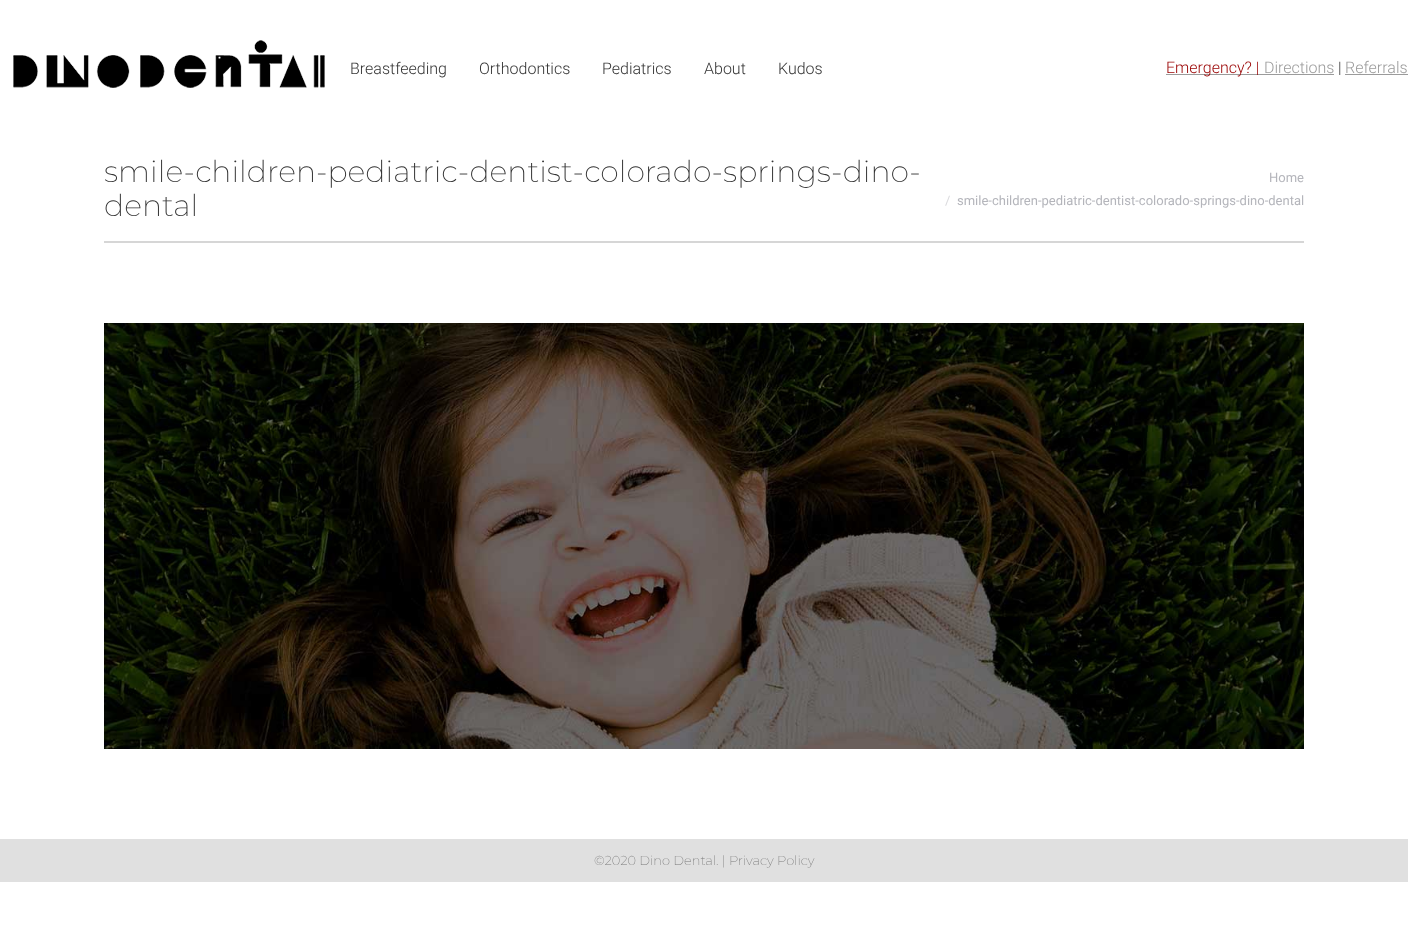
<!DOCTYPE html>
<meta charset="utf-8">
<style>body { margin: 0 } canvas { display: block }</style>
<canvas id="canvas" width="1408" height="946"></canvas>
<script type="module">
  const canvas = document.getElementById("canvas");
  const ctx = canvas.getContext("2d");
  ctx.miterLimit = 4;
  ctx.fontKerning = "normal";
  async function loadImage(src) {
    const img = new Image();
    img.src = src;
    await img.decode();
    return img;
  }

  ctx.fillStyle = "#ffffff";
  ctx.fillRect(0, 0, 1408, 946);
  ctx.drawImage(await loadImage("img1.png"), 13, 40, 312, 48);
  ctx.font = "300 16px Roboto";
  ctx.fillStyle = "#333333";
  ctx.fillText("Breastfeeding", 350, 74);
  ctx.fillText("Orthodontics", 479, 74);
  ctx.fillText("Pediatrics", 602, 74);
  ctx.fillText("About", 704, 74);
  ctx.fillText("Kudos", 778, 74);
  ctx.fillStyle = "#9b9b9b";
  ctx.fillRect(1166, 74, 168, 1);
  ctx.fillStyle = "#990000";
  ctx.fillText("Emergency? |", 1166, 73);
  ctx.fillStyle = "#9b9b9b";
  ctx.fillText("Directions", 1264, 73);
  ctx.fillStyle = "#333333";
  ctx.fillText("|", 1338, 73);
  ctx.fillStyle = "#9b9b9b";
  ctx.fillText("Referrals", 1345, 73);
  ctx.fillRect(1345, 74, 63, 1);
  ctx.font = "200 30px Montserrat";
  ctx.fillStyle = "#333333";
  ctx.fillText("smile-children-pediatric-dentist-colorado-springs-dino-", 104, 182);
  ctx.fillText("dental", 104, 216);
  ctx.font = "13px Roboto";
  ctx.fillStyle = "#b4b5bb";
  ctx.fillText("Home", 1269, 182);
  ctx.fillStyle = "#dadadd";
  ctx.fillText("/", 945, 205);
  ctx.fillStyle = "#b4b5bb";
  ctx.fillText("smile-children-pediatric-dentist-colorado-springs-dino-dental", 957, 205);
  ctx.fillStyle = "#d6d6d6";
  ctx.fillRect(104, 241, 1200, 2);
  ctx.drawImage(await loadImage("img2.png"), 104, 323, 1200, 426);
  ctx.fillStyle = "#e0e0e0";
  ctx.fillRect(0, 839, 1408, 43);
  ctx.font = "200 13px Montserrat";
  ctx.fillStyle = "#7a7a7a";
  ctx.fillText("©2020 Dino Dental. | Privacy Policy", 594, 865);
</script>
